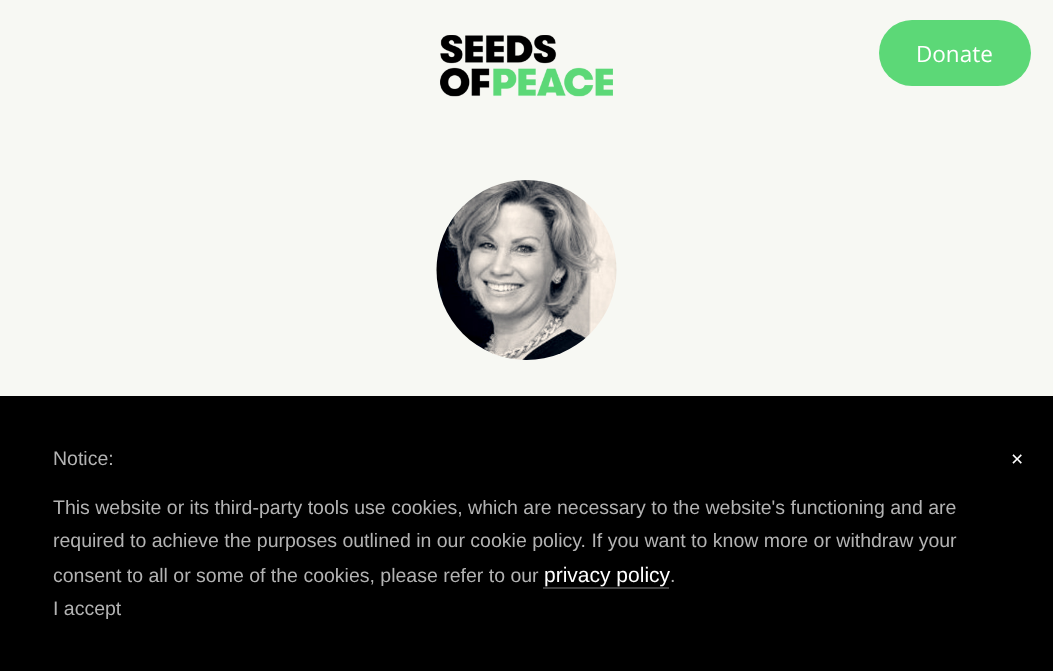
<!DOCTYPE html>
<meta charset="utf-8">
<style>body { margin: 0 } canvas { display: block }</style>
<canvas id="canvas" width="1053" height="671"></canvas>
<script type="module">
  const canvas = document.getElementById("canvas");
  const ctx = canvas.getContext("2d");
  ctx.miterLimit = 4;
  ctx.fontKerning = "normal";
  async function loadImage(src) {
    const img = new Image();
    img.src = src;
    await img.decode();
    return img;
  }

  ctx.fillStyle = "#f7f8f3";
  ctx.fillRect(0, 0, 1053, 671);
  ctx.drawImage(await loadImage("img1.png"), 440, 35, 173, 62);
  ctx.fillStyle = "#5cd877";
  ctx.beginPath();
  ctx.roundRect(879, 20, 152, 66, 33);
  ctx.fill();
  ctx.font = "22.5px Open Sans";
  ctx.fillStyle = "#ffffff";
  ctx.fillText("Donate", 916, 62);
  ctx.drawImage(await loadImage("img2.png"), 436, 180, 181, 180);
  ctx.fillStyle = "#000000";
  ctx.fillRect(0, 396, 1053, 275);
  ctx.font = "19.5px Liberation Sans";
  ctx.fillStyle = "#b3b3b3";
  ctx.fillText("Notice:", 53, 465);
  ctx.fillText("This website or its third-party tools use cookies, which are necessary to the website's functioning and are", 53, 514);
  ctx.fillText("required to achieve the purposes outlined in our cookie policy. If you want to know more or withdraw your", 53, 547);
  ctx.fillText("consent to all or some of the cookies, please refer to our", 53, 582);
  ctx.font = "21px Liberation Sans";
  ctx.fillStyle = "#ffffff";
  ctx.fillText("privacy policy", 544, 582);
  ctx.fillStyle = "#404040";
  ctx.fillRect(543, 587, 126, 2);
  ctx.font = "19.5px Liberation Sans";
  ctx.fillStyle = "#b3b3b3";
  ctx.fillText(".", 670, 582);
  ctx.fillText("I accept", 53, 615);
  ctx.font = "21px Liberation Sans";
  ctx.fillStyle = "#ffffff";
  ctx.fillText("×", 1011, 466);
</script>
